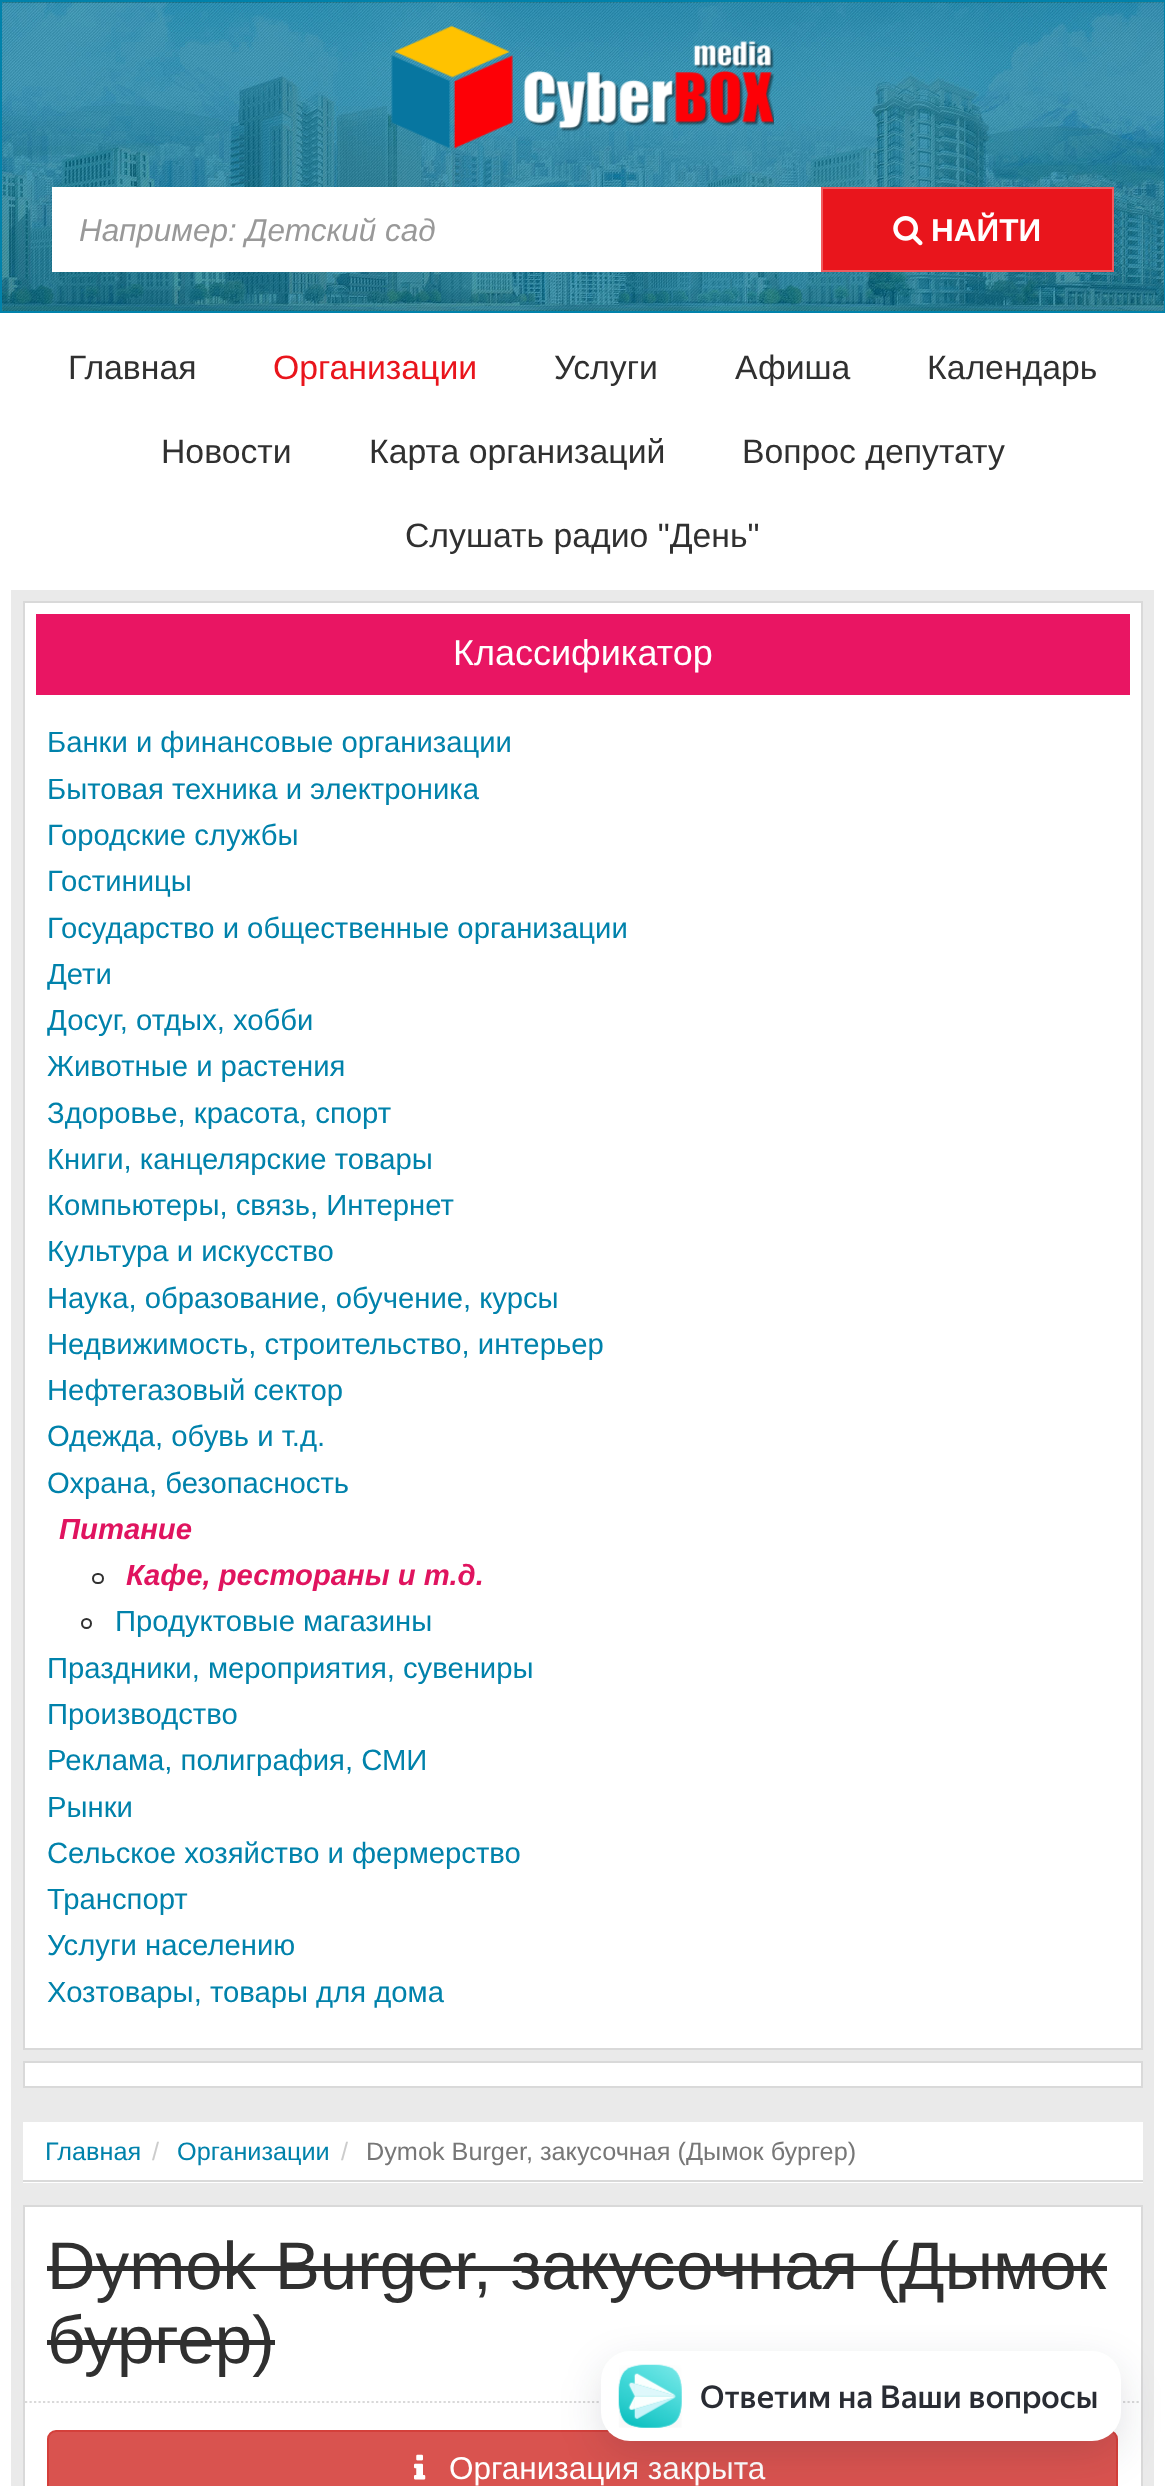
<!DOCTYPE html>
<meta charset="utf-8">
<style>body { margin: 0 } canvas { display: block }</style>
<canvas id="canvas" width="1165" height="2486"></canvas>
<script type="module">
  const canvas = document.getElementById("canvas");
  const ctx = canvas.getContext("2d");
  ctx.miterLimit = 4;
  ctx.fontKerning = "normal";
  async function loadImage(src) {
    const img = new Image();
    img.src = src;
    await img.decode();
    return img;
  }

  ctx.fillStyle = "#ffffff";
  ctx.fillRect(0, 0, 1165, 2486);
  ctx.drawImage(await loadImage("img1.png"), 2, 2, 1162, 309);
  ctx.strokeStyle = "#0082ab";
  ctx.lineWidth = 2;
  ctx.strokeRect(1, 1, 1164, 311);
  ctx.drawImage(await loadImage("img2.png"), 391, 25, 383, 124);
  ctx.fillRect(52, 187, 769, 85);
  ctx.font = "italic 31.5px Liberation Sans";
  ctx.fillStyle = "#999999";
  ctx.fillText("Например: Детский сад", 79, 241);
  ctx.fillStyle = "#e9151c";
  ctx.beginPath();
  ctx.rect(822, 188, 291, 83);
  ctx.fill();
  ctx.strokeStyle = "#f05a5f";
  ctx.stroke();
  ctx.drawImage(await loadImage("img3.png"), 893, 216, 30, 30);
  ctx.font = "bold 31.5px Liberation Sans";
  ctx.fillStyle = "#ffffff";
  ctx.fillText("НАЙТИ", 931, 241);
  ctx.font = "33.75px Liberation Sans";
  ctx.fillStyle = "#303030";
  ctx.fillText("Главная", 68, 379);
  ctx.fillStyle = "#e9151c";
  ctx.fillText("Организации", 273, 379);
  ctx.fillStyle = "#303030";
  ctx.fillText("Услуги", 554, 379);
  ctx.fillText("Афиша", 735, 379);
  ctx.fillText("Календарь", 927, 379);
  ctx.fillText("Новости", 161, 463);
  ctx.fillText("Карта организаций", 369, 463);
  ctx.fillText("Вопрос депутату", 742, 463);
  ctx.fillText("Слушать радио \"День\"", 405, 547);
  ctx.fillStyle = "#eaeaea";
  ctx.fillRect(11, 590, 1143, 1896);
  ctx.fillStyle = "#ffffff";
  ctx.beginPath();
  ctx.rect(24, 602, 1118, 1447);
  ctx.fill();
  ctx.strokeStyle = "#d9d9d9";
  ctx.stroke();
  ctx.fillStyle = "#e91563";
  ctx.fillRect(36, 614, 1094, 81);
  ctx.font = "36px Liberation Sans";
  ctx.fillStyle = "#ffffff";
  ctx.fillText("Классификатор", 453, 665);
  ctx.font = "29.25px Liberation Sans";
  ctx.fillStyle = "#0082ab";
  ctx.fillText("Банки и финансовые организации", 47, 752);
  ctx.fillText("Бытовая техника и электроника", 47, 799);
  ctx.fillText("Городские службы", 47, 845);
  ctx.fillText("Гостиницы", 47, 891);
  ctx.fillText("Государство и общественные организации", 47, 938);
  ctx.fillText("Дети", 47, 984);
  ctx.fillText("Досуг, отдых, хобби", 47, 1030);
  ctx.fillText("Животные и растения", 47, 1076);
  ctx.fillText("Здоровье, красота, спорт", 47, 1123);
  ctx.fillText("Книги, канцелярские товары", 47, 1169);
  ctx.fillText("Компьютеры, связь, Интернет", 47, 1215);
  ctx.fillText("Культура и искусство", 47, 1261);
  ctx.fillText("Наука, образование, обучение, курсы", 47, 1308);
  ctx.fillText("Недвижимость, строительство, интерьер", 47, 1354);
  ctx.fillText("Нефтегазовый сектор", 47, 1400);
  ctx.fillText("Одежда, обувь и т.д.", 47, 1446);
  ctx.fillText("Охрана, безопасность", 47, 1493);
  ctx.font = "italic bold 29.25px Liberation Sans";
  ctx.fillStyle = "#e0145f";
  ctx.fillText("Питание", 59, 1539);
  ctx.beginPath();
  ctx.roundRect(93, 1574, 10, 9, 4.5);
  ctx.strokeStyle = "#303030";
  ctx.stroke();
  ctx.fillText("Кафе, рестораны и т.д.", 126, 1585);
  ctx.beginPath();
  ctx.arc(86.5, 1623.5, 4.5, 0, Math.PI * 2);
  ctx.stroke();
  ctx.font = "29.25px Liberation Sans";
  ctx.fillStyle = "#0082ab";
  ctx.fillText("Продуктовые магазины", 115, 1631);
  ctx.fillText("Праздники, мероприятия, сувениры", 47, 1678);
  ctx.fillText("Производство", 47, 1724);
  ctx.fillText("Реклама, полиграфия, СМИ", 47, 1770);
  ctx.fillText("Рынки", 47, 1817);
  ctx.fillText("Сельское хозяйство и фермерство", 47, 1863);
  ctx.fillText("Транспорт", 47, 1909);
  ctx.fillText("Услуги населению", 47, 1955);
  ctx.fillText("Хозтовары, товары для дома", 47, 2002);
  ctx.fillStyle = "#ffffff";
  ctx.beginPath();
  ctx.rect(24, 2062, 1118, 25);
  ctx.fill();
  ctx.strokeStyle = "#d9d9d9";
  ctx.stroke();
  ctx.fillRect(23, 2122, 1120, 61);
  ctx.fillStyle = "#d9d9d9";
  ctx.fillRect(23, 2180, 1120, 2);
  ctx.font = "25.25px Liberation Sans";
  ctx.fillStyle = "#0082ab";
  ctx.fillText("Главная", 45, 2160);
  ctx.fillStyle = "#cccccc";
  ctx.fillText("/", 152, 2160);
  ctx.fillStyle = "#0082ab";
  ctx.fillText("Организации", 177, 2160);
  ctx.fillStyle = "#cccccc";
  ctx.fillText("/", 341, 2160);
  ctx.fillStyle = "#777777";
  ctx.fillText("Dymok Burger, закусочная (Дымок бургер)", 366, 2160);
  ctx.fillStyle = "#ffffff";
  ctx.beginPath();
  ctx.rect(24, 2206, 1118, 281);
  ctx.fill();
  ctx.stroke();
  ctx.beginPath();
  ctx.moveTo(25, 2402);
  ctx.lineTo(1141, 2402);
  ctx.lineWidth = 2.2;
  ctx.setLineDash([2.25, 2.25]);
  ctx.stroke();
  ctx.font = "67.25px Liberation Sans";
  ctx.fillStyle = "#303030";
  ctx.fillText("Dymok Burger, закусочная (Дымок", 47, 2289);
  ctx.fillRect(47, 2266, 1060, 5);
  ctx.fillText("бургер)", 47, 2363);
  ctx.fillRect(47, 2340, 228, 5);
  ctx.fillStyle = "#d9534f";
  ctx.beginPath();
  ctx.roundRect(48, 2431, 1069, 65, 8);
  ctx.fill();
  ctx.strokeStyle = "#d43f3a";
  ctx.lineWidth = 2;
  ctx.setLineDash([]);
  ctx.stroke();
  ctx.drawImage(await loadImage("img4.png"), 414, 2454, 12, 26);
  ctx.font = "31.5px Liberation Sans";
  ctx.fillStyle = "#ffffff";
  ctx.fillText("Организация закрыта", 449, 2479);
  ctx.fillStyle = "rgba(14, 21, 47, 0.13)";
  ctx.filter = "blur(20px)";
  ctx.beginPath();
  ctx.roundRect(601, 2365, 520, 90, 29);
  ctx.fill();
  ctx.filter = "none";
  ctx.fillStyle = "#ffffff";
  ctx.beginPath();
  ctx.roundRect(601, 2351, 520, 90, 29);
  ctx.fill();
  ctx.drawImage(await loadImage("img5.png"), 618, 2364, 64, 64);
  ctx.font = "500 31.5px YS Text";
  ctx.fillStyle = "#292c33";
  ctx.fillText("Ответим на Ваши вопросы", 700, 2408);
</script>
